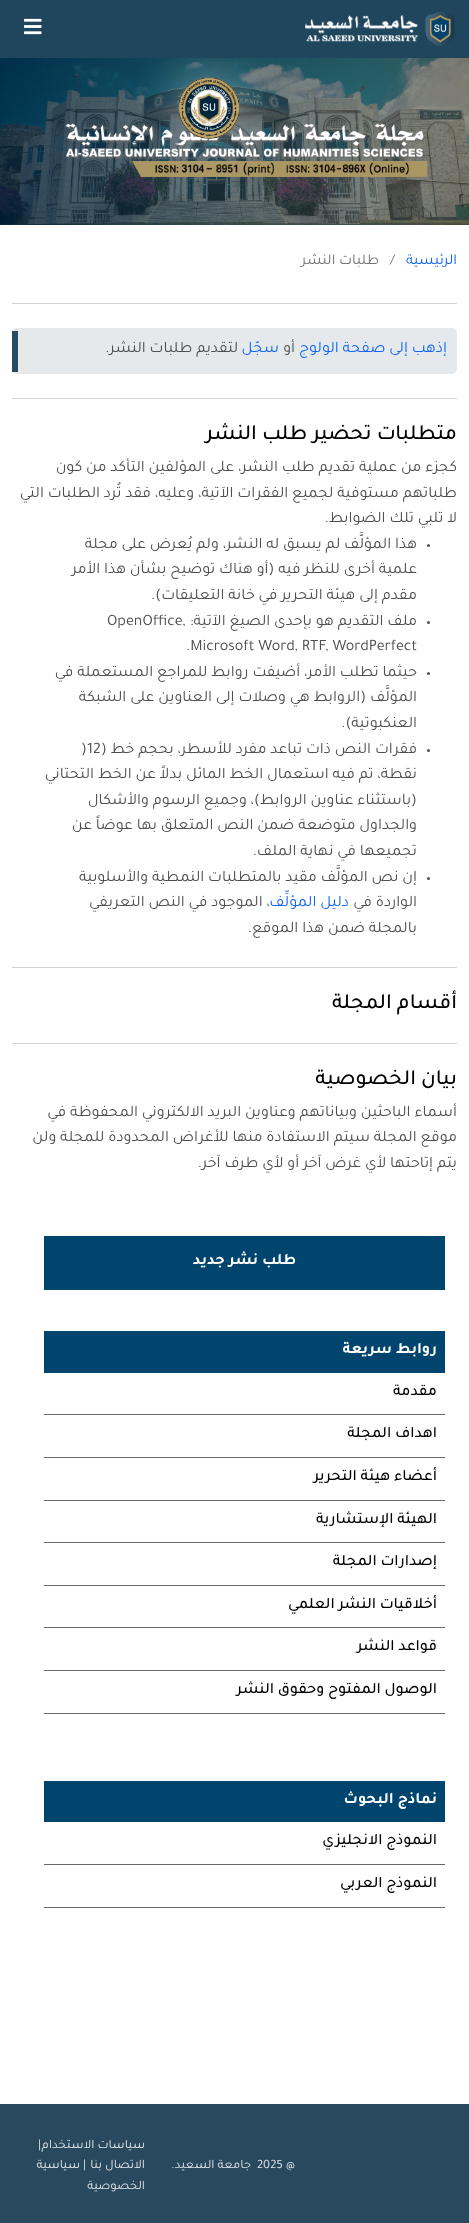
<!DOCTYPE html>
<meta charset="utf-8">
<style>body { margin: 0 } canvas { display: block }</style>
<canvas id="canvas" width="469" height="2223"></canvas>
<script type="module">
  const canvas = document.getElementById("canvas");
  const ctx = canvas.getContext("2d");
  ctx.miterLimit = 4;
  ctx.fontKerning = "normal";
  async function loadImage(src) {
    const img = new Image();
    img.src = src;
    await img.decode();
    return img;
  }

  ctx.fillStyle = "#ffffff";
  ctx.fillRect(0, 0, 469, 2223);
  ctx.drawImage(await loadImage("img3.png"), 0, 58, 469, 167);
  ctx.drawImage(await loadImage("img5.png"), 65, 123, 363, 54);
  ctx.fillStyle = "rgba(255, 255, 255, 0.45)";
  ctx.filter = "blur(25px)";
  ctx.beginPath();
  ctx.roundRect(178, 77, 62, 62, 31);
  ctx.fill();
  ctx.filter = "none";
  ctx.fillStyle = "#20465e";
  ctx.fillRect(0, 0, 469, 58);
  ctx.drawImage(await loadImage("img1.png"), 305, 12, 150, 34);
  ctx.drawImage(await loadImage("img2.png"), 24, 18, 18, 17);
  ctx.drawImage(await loadImage("img4.png"), 178, 77, 62, 62);
  ctx.direction = "rtl";
  ctx.font = "15px Tajawal";
  ctx.fillStyle = "#1266f1";
  ctx.fillText("الرئيسية", 457, 264);
  ctx.direction = "ltr";
  ctx.fillStyle = "#757575";
  ctx.fillText("/", 390, 264);
  ctx.direction = "rtl";
  ctx.fillText("طلبات النشر", 379, 264);
  ctx.fillStyle = "#d3d3d3";
  ctx.fillRect(12, 303, 445, 1);
  ctx.fillStyle = "#e5e9ec";
  ctx.beginPath();
  ctx.roundRect(12, 328, 445, 46, 5);
  ctx.fill();
  ctx.fillStyle = "#29495e";
  ctx.fillRect(12, 331, 6, 41);
  ctx.font = "16px Tajawal";
  ctx.fillStyle = "#1266f1";
  ctx.fillText("إذهب إلى صفحة الولوج", 447, 352);
  ctx.fillStyle = "#4f4f4f";
  ctx.fillText("أو", 295, 352);
  ctx.fillStyle = "#1266f1";
  ctx.fillText("سجّل", 279, 352);
  ctx.fillStyle = "#4f4f4f";
  ctx.fillText("لتقديم طلبات النشر.", 238, 352);
  ctx.fillStyle = "#d3d3d3";
  ctx.fillRect(12, 398, 445, 1);
  ctx.font = "500 21.75px Tajawal";
  ctx.fillStyle = "#000000";
  ctx.fillText("متطلبات تحضير طلب النشر", 457, 439);
  ctx.font = "16px Tajawal";
  ctx.fillStyle = "#4f4f4f";
  ctx.fillText("كجزء من عملية تقديم طلب النشر، على المؤلفين التأكد من كون", 457, 471);
  ctx.fillText("طلباتهم مستوفية لجميع الفقرات الآتية، وعليه، فقد تُرد الطلبات التي", 457, 497);
  ctx.fillText("لا تلبي تلك الضوابط.", 457, 522);
  ctx.beginPath();
  ctx.arc(428.5, 545.5, 1.5, 0, Math.PI * 2);
  ctx.fill();
  ctx.fillText("هذا المؤلَّف لم يسبق له النشر، ولم يُعرض على مجلة", 417, 548);
  ctx.fillText("علمية أخرى للنظر فيه (أو هناك توضيح بشأن هذا الأمر", 417, 573);
  ctx.fillText("مقدم إلى هيئة التحرير في خانة التعليقات).", 417, 599);
  ctx.beginPath();
  ctx.arc(428.5, 622.5, 1.5, 0, Math.PI * 2);
  ctx.fill();
  ctx.fillText("ملف التقديم هو بإحدى الصيغ الآتية:", 417, 625);
  ctx.direction = "ltr";
  ctx.fillText("OpenOffice,", 107, 625);
  ctx.fillText(".Microsoft Word, RTF, WordPerfect", 186, 650);
  ctx.beginPath();
  ctx.arc(428.5, 673.5, 1.5, 0, Math.PI * 2);
  ctx.fill();
  ctx.direction = "rtl";
  ctx.fillText("حيثما تطلب الأمر، أضيفت روابط للمراجع المستعملة في", 417, 676);
  ctx.fillText("المؤلَّف (الروابط هي وصلات إلى العناوين على الشبكة", 417, 701);
  ctx.fillText("العنكبوتية).", 417, 727);
  ctx.beginPath();
  ctx.arc(428.5, 750.5, 1.5, 0, Math.PI * 2);
  ctx.fill();
  ctx.fillText("فقرات النص ذات تباعد مفرد للأسطر، بحجم خط (", 417, 753);
  ctx.direction = "ltr";
  ctx.fillText(")12", 81, 753);
  ctx.direction = "rtl";
  ctx.fillText("نقطة، تم فيه استعمال الخط المائل بدلاً عن الخط التحتاني", 417, 778);
  ctx.fillText("(باستثناء عناوين الروابط)، وجميع الرسوم والأشكال", 417, 804);
  ctx.fillText("والجداول متوضعة ضمن النص المتعلق بها عوضاً عن", 417, 829);
  ctx.fillText("تجميعها في نهاية الملف.", 417, 855);
  ctx.beginPath();
  ctx.arc(428.5, 878.5, 1.5, 0, Math.PI * 2);
  ctx.fill();
  ctx.fillText("إن نص المؤلَّف مقيد بالمتطلبات النمطية والأسلوبية", 417, 881);
  ctx.fillText("الواردة في", 417, 906);
  ctx.fillStyle = "#1266f1";
  ctx.fillText("دليل المؤلِّف", 349, 906);
  ctx.fillStyle = "#4f4f4f";
  ctx.fillText("، الموجود في النص التعريفي", 270, 906);
  ctx.fillText("بالمجلة ضمن هذا الموقع.", 417, 932);
  ctx.fillStyle = "#d3d3d3";
  ctx.fillRect(12, 967, 445, 1);
  ctx.font = "500 21.75px Tajawal";
  ctx.fillStyle = "#000000";
  ctx.fillText("أقسام المجلة", 457, 1008);
  ctx.fillStyle = "#d3d3d3";
  ctx.fillRect(12, 1043, 445, 1);
  ctx.fillStyle = "#000000";
  ctx.fillText("بيان الخصوصية", 457, 1084);
  ctx.font = "16px Tajawal";
  ctx.fillStyle = "#4f4f4f";
  ctx.fillText("أسماء الباحثين وبياناتهم وعناوين البريد الالكتروني المحفوظة في", 457, 1116);
  ctx.fillText("موقع المجلة سيتم الاستفادة منها للأغراض المحدودة للمجلة ولن", 457, 1141);
  ctx.fillText("يتم إتاحتها لأي غرض آخر أو لأي طرف آخر.", 457, 1167);
  ctx.fillStyle = "#00456e";
  ctx.fillRect(44, 1236, 401, 54);
  ctx.font = "bold 16px Tajawal";
  ctx.fillStyle = "#ffffff";
  ctx.fillText("طلب نشر جديد", 296, 1264);
  ctx.fillStyle = "#00456e";
  ctx.fillRect(44, 1331, 401, 42);
  ctx.fillStyle = "#ffffff";
  ctx.fillText("روابط سريعة", 437, 1353);
  ctx.fillStyle = "#696969";
  ctx.fillRect(44, 1414, 401, 1);
  ctx.font = "500 16px Tajawal";
  ctx.fillStyle = "#000000";
  ctx.fillText("مقدمة", 437, 1395);
  ctx.fillStyle = "#696969";
  ctx.fillRect(44, 1457, 401, 1);
  ctx.fillStyle = "#000000";
  ctx.fillText("اهداف المجلة", 437, 1437);
  ctx.fillStyle = "#696969";
  ctx.fillRect(44, 1500, 401, 1);
  ctx.fillStyle = "#000000";
  ctx.fillText("أعضاء هيئة التحرير", 437, 1480);
  ctx.fillStyle = "#696969";
  ctx.fillRect(44, 1542, 401, 1);
  ctx.fillStyle = "#000000";
  ctx.fillText("الهيئة الإستشارية", 437, 1523);
  ctx.fillStyle = "#696969";
  ctx.fillRect(44, 1585, 401, 1);
  ctx.fillStyle = "#000000";
  ctx.fillText("إصدارات المجلة", 437, 1565);
  ctx.fillStyle = "#696969";
  ctx.fillRect(44, 1627, 401, 1);
  ctx.fillStyle = "#000000";
  ctx.fillText("أخلاقيات النشر العلمي", 437, 1608);
  ctx.fillStyle = "#696969";
  ctx.fillRect(44, 1670, 401, 1);
  ctx.fillStyle = "#000000";
  ctx.fillText("قواعد النشر", 437, 1650);
  ctx.fillStyle = "#696969";
  ctx.fillRect(44, 1713, 401, 1);
  ctx.fillStyle = "#000000";
  ctx.fillText("الوصول المفتوح وحقوق النشر", 437, 1693);
  ctx.fillStyle = "#00456e";
  ctx.fillRect(44, 1781, 401, 41);
  ctx.font = "bold 16px Tajawal";
  ctx.fillStyle = "#ffffff";
  ctx.fillText("نماذج البحوث", 437, 1803);
  ctx.fillStyle = "#696969";
  ctx.fillRect(44, 1864, 401, 1);
  ctx.font = "500 16px Tajawal";
  ctx.fillStyle = "#000000";
  ctx.fillText("النموذج الانجليزي", 437, 1844);
  ctx.fillStyle = "#696969";
  ctx.fillRect(44, 1907, 401, 1);
  ctx.fillStyle = "#000000";
  ctx.fillText("النموذج العربي", 437, 1887);
  ctx.fillStyle = "#29495e";
  ctx.fillRect(0, 2104, 469, 119);
  ctx.direction = "ltr";
  ctx.font = "12.75px Tajawal";
  ctx.fillStyle = "#e1e6e8";
  ctx.fillText("2025 @", 257, 2168);
  ctx.direction = "rtl";
  ctx.fillText("جامعة السعيد.", 251, 2168);
  ctx.fillText("سياسات الاستخدام", 145, 2148);
  ctx.direction = "ltr";
  ctx.fillText("|", 38, 2148);
  ctx.direction = "rtl";
  ctx.fillText("الاتصال بنا", 145, 2168);
  ctx.direction = "ltr";
  ctx.fillText("|", 83, 2168);
  ctx.direction = "rtl";
  ctx.fillText("سياسية", 80, 2168);
  ctx.fillText("الخصوصية", 145, 2189);
</script>
